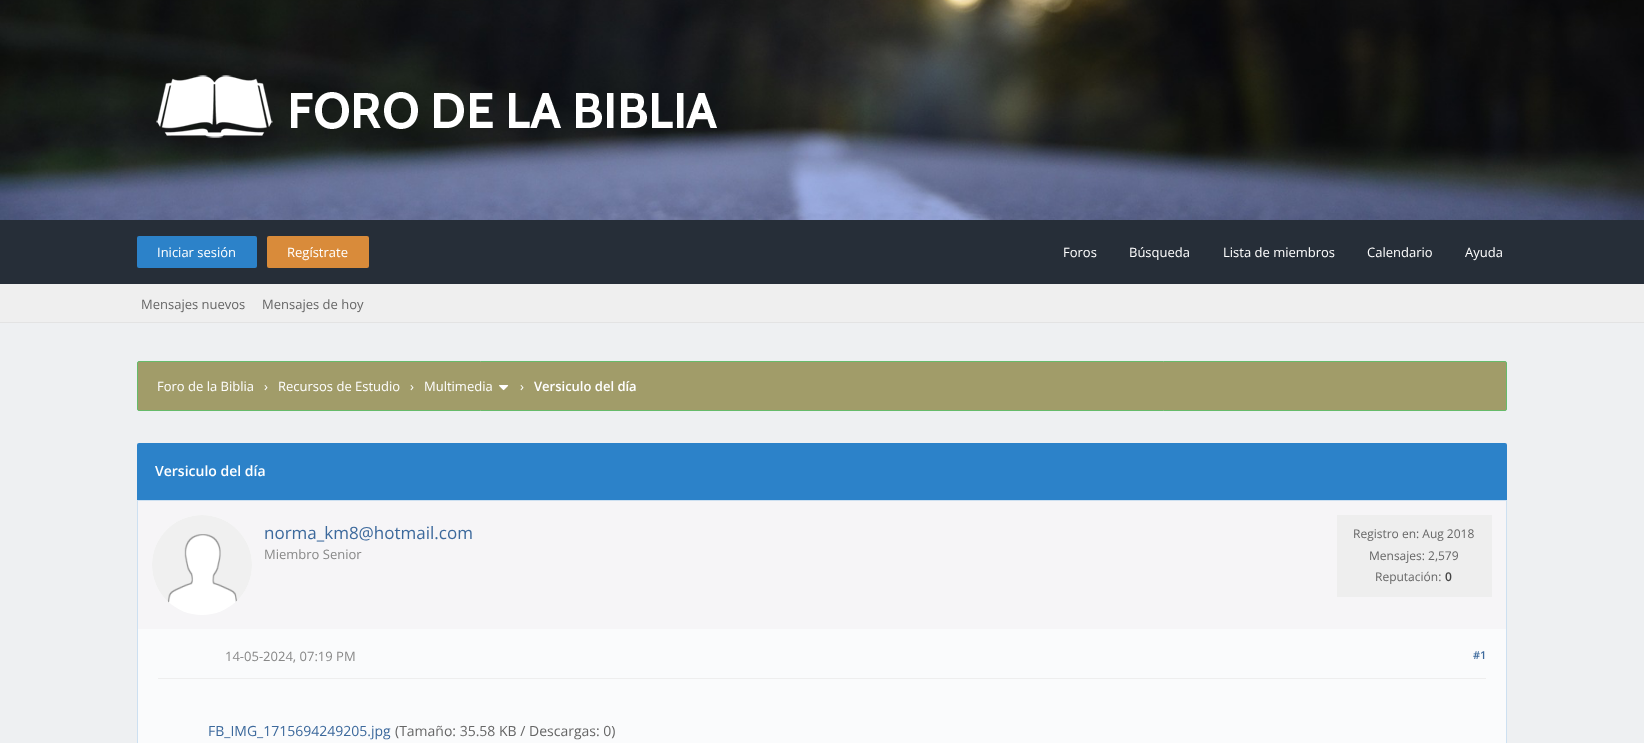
<!DOCTYPE html>
<meta charset="utf-8">
<style>body { margin: 0 } canvas { display: block }</style>
<canvas id="canvas" width="1644" height="743"></canvas>
<script type="module">
  const canvas = document.getElementById("canvas");
  const ctx = canvas.getContext("2d");
  ctx.miterLimit = 4;
  ctx.fontKerning = "normal";
  async function loadImage(src) {
    const img = new Image();
    img.src = src;
    await img.decode();
    return img;
  }

  ctx.fillStyle = "#ffffff";
  ctx.fillRect(0, 0, 1644, 743);
  ctx.drawImage(await loadImage("img1.png"), 0, 0, 1644, 220);
  ctx.drawImage(await loadImage("img2.png"), 156, 75, 561, 63);
  ctx.fillStyle = "#262e38";
  ctx.fillRect(0, 220, 1644, 64);
  ctx.fillStyle = "#2c82c9";
  ctx.beginPath();
  ctx.roundRect(137, 236, 120, 32, 2);
  ctx.fill();
  ctx.font = "13px Open Sans";
  ctx.fillStyle = "#ffffff";
  ctx.fillText("Iniciar sesión", 157, 257);
  ctx.fillStyle = "#d98b3a";
  ctx.beginPath();
  ctx.roundRect(267, 236, 102, 32, 2);
  ctx.fill();
  ctx.fillStyle = "#ffffff";
  ctx.fillText("Regístrate", 287, 257);
  ctx.fillText("Foros", 1063, 257);
  ctx.fillText("Búsqueda", 1129, 257);
  ctx.fillText("Lista de miembros", 1223, 257);
  ctx.fillText("Calendario", 1367, 257);
  ctx.fillText("Ayuda", 1465, 257);
  ctx.fillStyle = "#efefef";
  ctx.fillRect(0, 284, 1644, 38);
  ctx.fillStyle = "#e3e3e3";
  ctx.fillRect(0, 322, 1644, 1);
  ctx.fillStyle = "#666666";
  ctx.fillText("Mensajes nuevos", 141, 309);
  ctx.fillText("Mensajes de hoy", 262, 309);
  ctx.fillStyle = "#eef0f2";
  ctx.fillRect(0, 323, 1644, 420);
  ctx.fillStyle = "#a19c69";
  ctx.beginPath();
  ctx.roundRect(137.5, 361.5, 1369, 49, 1.5);
  ctx.fill();
  ctx.strokeStyle = "#66bb6a";
  ctx.stroke();
  ctx.fillStyle = "#ffffff";
  ctx.fillText("Foro de la Biblia", 157, 391);
  ctx.fillText("›", 264, 391);
  ctx.fillText("Recursos de Estudio", 278, 391);
  ctx.fillText("›", 410, 391);
  ctx.fillText("Multimedia", 424, 391);
  ctx.drawImage(await loadImage("img3.png"), 499, 385, 10, 6);
  ctx.fillText("›", 520, 391);
  ctx.font = "600 13px Open Sans";
  ctx.fillText("Versiculo del día", 534, 391);
  ctx.fillStyle = "#2c82c9";
  ctx.beginPath();
  ctx.roundRect(137, 443, 1370, 57, [2, 2, 0, 0]);
  ctx.fill();
  ctx.font = "600 14px Open Sans";
  ctx.fillStyle = "#ffffff";
  ctx.fillText("Versiculo del día", 155, 476);
  ctx.fillStyle = "#fafbfc";
  ctx.fillRect(138, 629, 1368, 114);
  ctx.strokeStyle = "#cde0f1";
  ctx.strokeRect(137.5, 500.5, 1369, 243);
  ctx.fillStyle = "#f6f5f7";
  ctx.fillRect(138, 501, 1368, 128);
  ctx.fillStyle = "#ffffff";
  ctx.beginPath();
  ctx.arc(202, 565, 50, 0, Math.PI * 2);
  ctx.fill();
  ctx.drawImage(await loadImage("img4.png"), 152, 515, 100, 88);
  ctx.font = "17px Open Sans";
  ctx.fillStyle = "#3c699c";
  ctx.fillText("norma_km8@hotmail.com", 264, 539);
  ctx.font = "13px Open Sans";
  ctx.fillStyle = "#888888";
  ctx.fillText("Miembro Senior", 264, 559);
  ctx.fillStyle = "#eeeeee";
  ctx.fillRect(1337, 515, 155, 82);
  ctx.font = "12px Open Sans";
  ctx.fillStyle = "#666666";
  ctx.fillText("Registro en: Aug 2018", 1353, 538);
  ctx.fillText("Mensajes: 2,579", 1369, 560);
  ctx.fillText("Reputación:", 1375, 581);
  ctx.font = "600 12px Open Sans";
  ctx.fillStyle = "#444444";
  ctx.fillText("0", 1445, 581);
  ctx.fillStyle = "#eeeeee";
  ctx.fillRect(158, 678, 1328, 1);
  ctx.font = "13px Open Sans";
  ctx.fillStyle = "#888888";
  ctx.fillText("14-05-2024, 07:19 PM", 225, 661);
  ctx.font = "600 11px Open Sans";
  ctx.fillStyle = "#3c699c";
  ctx.fillText("#1", 1473, 659);
  ctx.font = "14px Open Sans";
  ctx.fillText("FB_IMG_1715694249205.jpg", 208, 736);
  ctx.fillStyle = "#666666";
  ctx.fillText("(Tamaño: 35.58 KB / Descargas: 0)", 395, 736);
</script>
